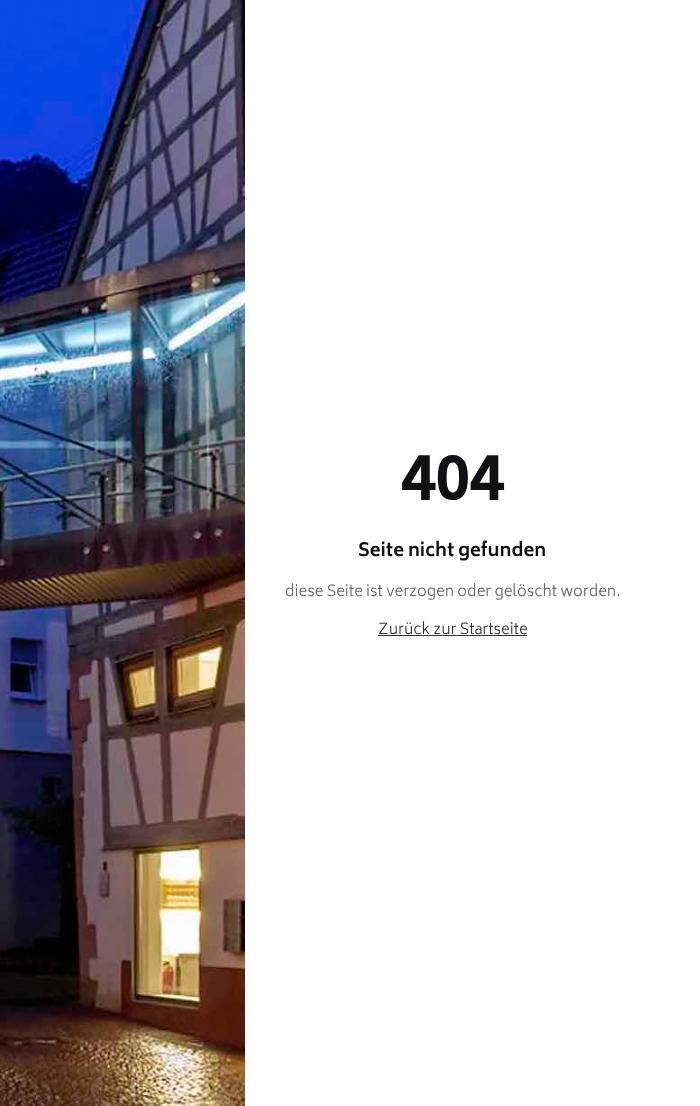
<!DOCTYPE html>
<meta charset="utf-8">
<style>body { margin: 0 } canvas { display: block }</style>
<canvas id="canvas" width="700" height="1106"></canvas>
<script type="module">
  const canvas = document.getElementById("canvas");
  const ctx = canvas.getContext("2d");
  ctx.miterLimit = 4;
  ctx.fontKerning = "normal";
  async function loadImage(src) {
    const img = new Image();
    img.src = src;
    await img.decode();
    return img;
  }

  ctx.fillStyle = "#ffffff";
  ctx.fillRect(0, 0, 700, 1106);
  ctx.drawImage(await loadImage("img1.png"), 0, 0, 245, 1106);
  ctx.letterSpacing = "-1px";
  ctx.font = "bold 64px Biryani";
  ctx.fillStyle = "#111115";
  ctx.fillText("404", 401, 499);
  ctx.letterSpacing = "0px";
  ctx.font = "bold 18px Biryani";
  ctx.fillText("Seite nicht gefunden", 358, 556);
  ctx.font = "300 15px Biryani";
  ctx.fillStyle = "#666666";
  ctx.fillText("diese Seite ist verzogen oder gelöscht worden.", 285, 596);
  ctx.fillStyle = "#353535";
  ctx.fillText("Zurück zur Startseite", 378, 634);
  ctx.fillRect(378, 635, 149, 1);
</script>
